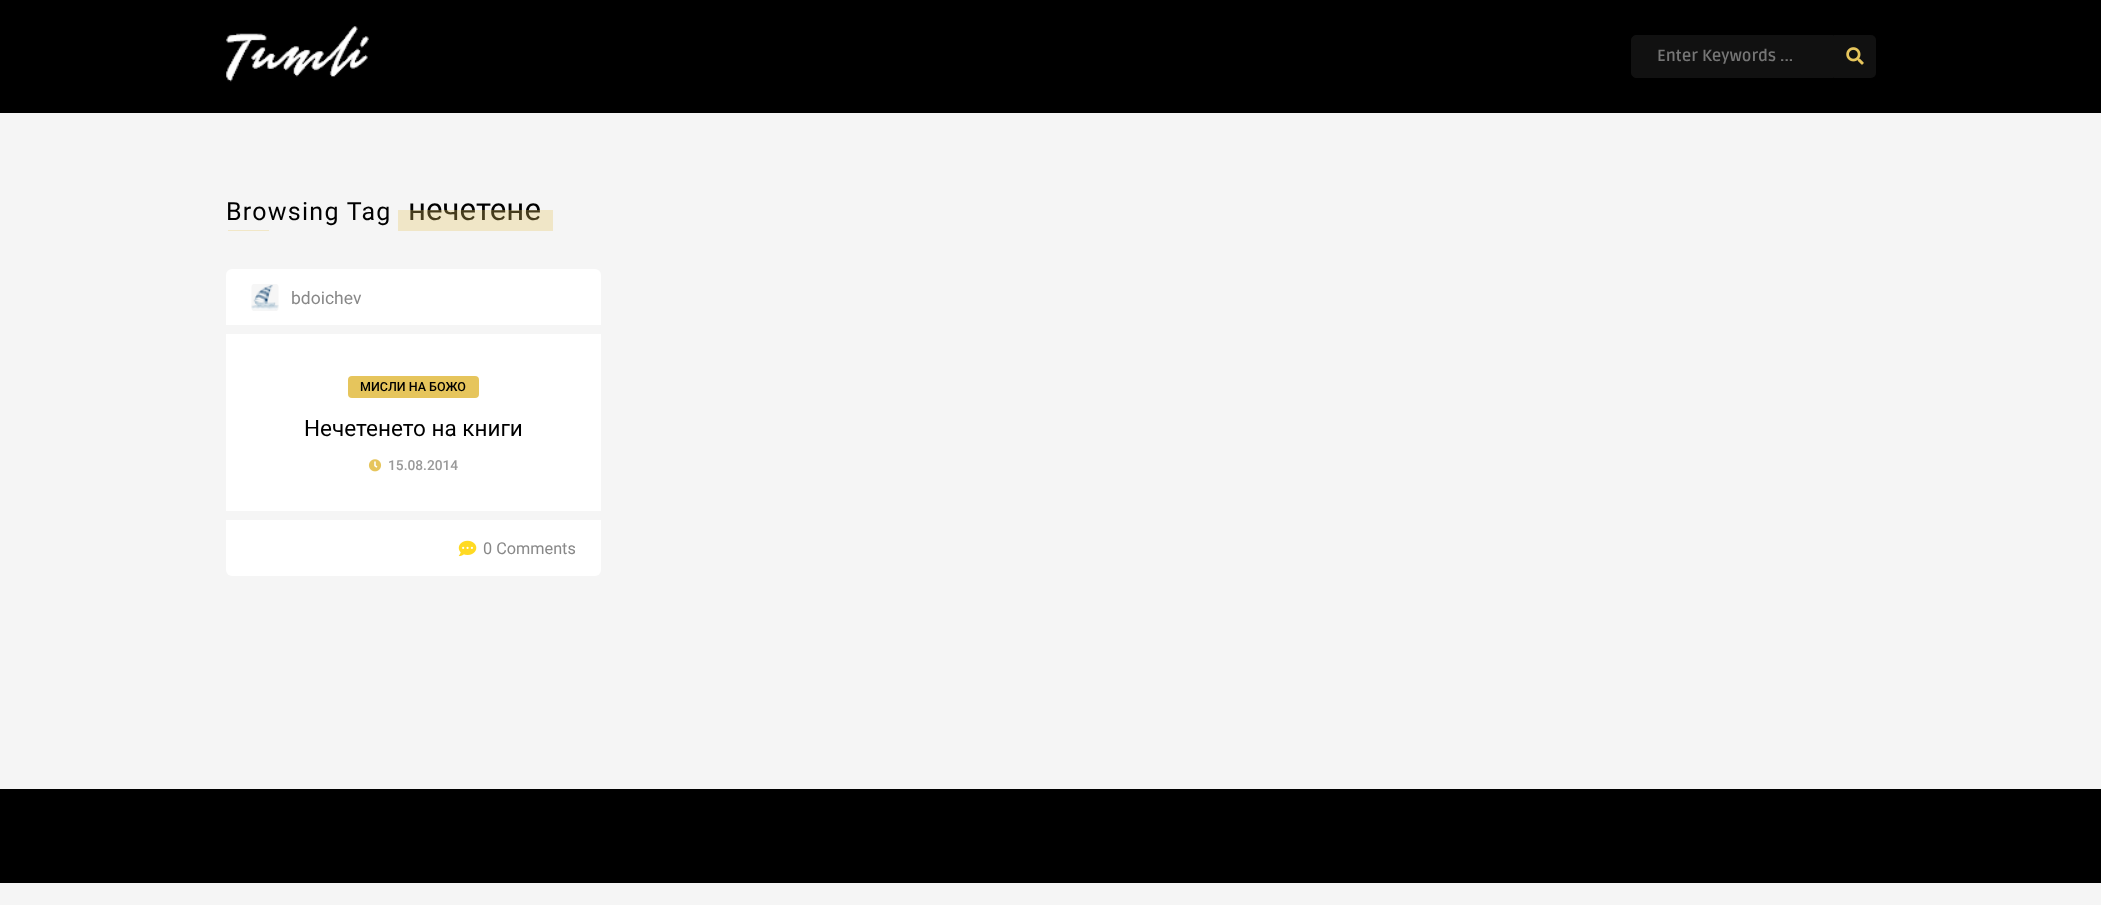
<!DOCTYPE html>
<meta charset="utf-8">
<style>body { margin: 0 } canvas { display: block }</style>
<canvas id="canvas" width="2101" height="905"></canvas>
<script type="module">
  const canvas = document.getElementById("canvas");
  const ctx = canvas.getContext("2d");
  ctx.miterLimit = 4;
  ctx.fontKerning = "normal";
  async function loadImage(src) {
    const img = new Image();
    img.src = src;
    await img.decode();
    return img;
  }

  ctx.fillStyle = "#f5f5f5";
  ctx.fillRect(0, 0, 2101, 905);
  ctx.fillStyle = "#000000";
  ctx.fillRect(0, 0, 2101, 113);
  ctx.drawImage(await loadImage("img1.png"), 226, 26, 143, 56);
  ctx.fillStyle = "#111111";
  ctx.beginPath();
  ctx.roundRect(1631.5, 35.5, 202, 42, [4.5, 0, 0, 4.5]);
  ctx.fill();
  ctx.strokeStyle = "#111111";
  ctx.stroke();
  ctx.font = "bold 16.25px Ruda";
  ctx.fillStyle = "#757575";
  ctx.fillText("Enter Keywords ...", 1657, 61);
  ctx.fillStyle = "#111111";
  ctx.beginPath();
  ctx.roundRect(1834, 35, 42, 43, [0, 5, 5, 0]);
  ctx.fill();
  ctx.drawImage(await loadImage("img2.png"), 1846, 47, 18, 18);
  ctx.letterSpacing = "1.25px";
  ctx.font = "25px Roboto";
  ctx.fillStyle = "#000000";
  ctx.fillText("Browsing Tag", 226, 220);
  ctx.fillStyle = "#f1e7c7";
  ctx.fillRect(228, 230, 41, 1);
  ctx.letterSpacing = "0px";
  ctx.font = "31.25px Roboto";
  ctx.fillStyle = "#000000";
  ctx.fillText("нечетене", 408, 220);
  ctx.fillStyle = "rgba(230, 197, 92, 0.3)";
  ctx.fillRect(398, 210, 155, 21);
  ctx.fillStyle = "#ffffff";
  ctx.beginPath();
  ctx.roundRect(226, 269, 375, 307, 6);
  ctx.fill();
  ctx.drawImage(await loadImage("img3.png"), 251, 284, 28, 27);
  ctx.font = "17.5px Roboto";
  ctx.fillStyle = "#888888";
  ctx.fillText("bdoichev", 291, 304);
  ctx.fillStyle = "#f5f5f5";
  ctx.fillRect(226, 325, 375, 9);
  ctx.fillStyle = "#e6c55c";
  ctx.beginPath();
  ctx.roundRect(348, 376, 131, 22, 4);
  ctx.fill();
  ctx.font = "500 12.5px Roboto";
  ctx.fillStyle = "#000000";
  ctx.fillText("МИСЛИ НА БОЖО", 360, 391);
  ctx.font = "22.5px Roboto";
  ctx.fillText("Нечетенето на книги", 304, 436);
  ctx.drawImage(await loadImage("img4.png"), 368, 459, 14, 13);
  ctx.font = "500 13.75px Roboto";
  ctx.fillStyle = "#999999";
  ctx.fillText("15.08.2014", 388, 470);
  ctx.fillStyle = "#f5f5f5";
  ctx.fillRect(226, 511, 375, 9);
  ctx.drawImage(await loadImage("img5.png"), 458, 540, 19, 17);
  ctx.font = "16.25px Roboto";
  ctx.fillStyle = "#888888";
  ctx.fillText("0 Comments", 483, 554);
  ctx.fillStyle = "#000000";
  ctx.fillRect(0, 789, 2101, 94);
</script>
